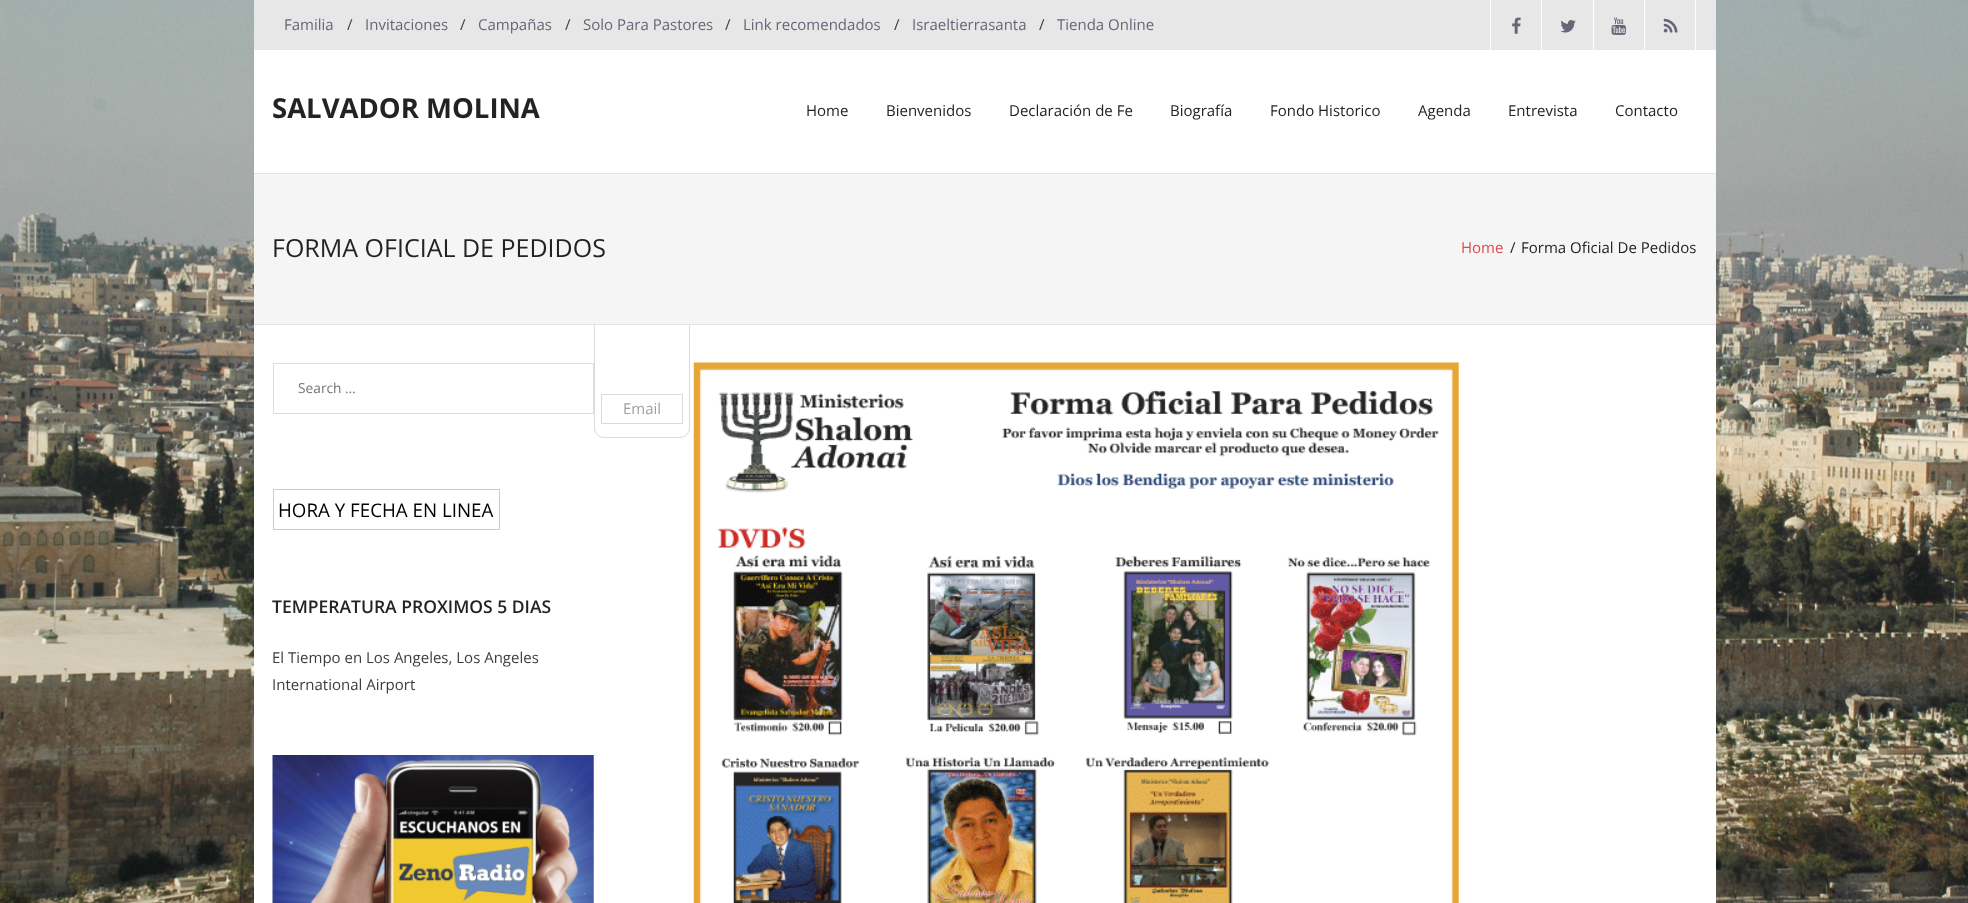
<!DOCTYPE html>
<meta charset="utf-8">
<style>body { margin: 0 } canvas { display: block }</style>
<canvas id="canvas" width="1968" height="903"></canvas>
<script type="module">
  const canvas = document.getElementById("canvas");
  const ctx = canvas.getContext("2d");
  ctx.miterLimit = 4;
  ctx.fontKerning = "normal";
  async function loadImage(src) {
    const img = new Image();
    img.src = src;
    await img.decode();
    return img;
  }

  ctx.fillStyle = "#ffffff";
  ctx.fillRect(0, 0, 1968, 903);
  ctx.drawImage(await loadImage("img1.png"), 0, 0, 1968, 903);
  ctx.fillRect(254, 50, 1462, 853);
  ctx.fillStyle = "#e7e7e7";
  ctx.fillRect(254, 0, 1462, 50);
  ctx.font = "15px Open Sans";
  ctx.fillStyle = "#666677";
  ctx.fillText("Familia", 284, 30);
  ctx.fillStyle = "#3d3d3d";
  ctx.fillText("/", 347, 30);
  ctx.fillStyle = "#666677";
  ctx.fillText("Invitaciones", 365, 30);
  ctx.fillStyle = "#3d3d3d";
  ctx.fillText("/", 460, 30);
  ctx.fillStyle = "#666677";
  ctx.fillText("Campañas", 478, 30);
  ctx.fillStyle = "#3d3d3d";
  ctx.fillText("/", 565, 30);
  ctx.fillStyle = "#666677";
  ctx.fillText("Solo Para Pastores", 583, 30);
  ctx.fillStyle = "#3d3d3d";
  ctx.fillText("/", 725, 30);
  ctx.fillStyle = "#666677";
  ctx.fillText("Link recomendados", 743, 30);
  ctx.fillStyle = "#3d3d3d";
  ctx.fillText("/", 894, 30);
  ctx.fillStyle = "#666677";
  ctx.fillText("Israeltierrasanta", 912, 30);
  ctx.fillStyle = "#3d3d3d";
  ctx.fillText("/", 1039, 30);
  ctx.fillStyle = "#666677";
  ctx.fillText("Tienda Online", 1057, 30);
  ctx.fillStyle = "#ffffff";
  ctx.fillRect(1490, 0, 1, 50);
  ctx.drawImage(await loadImage("img2.png"), 1512, 17, 9, 17);
  ctx.fillRect(1541, 0, 1, 50);
  ctx.drawImage(await loadImage("img3.png"), 1560, 20, 16, 13);
  ctx.fillRect(1593, 0, 1, 50);
  ctx.drawImage(await loadImage("img4.png"), 1611, 17, 15, 18);
  ctx.fillRect(1695, 0, 1, 50);
  ctx.fillRect(1644, 0, 1, 50);
  ctx.drawImage(await loadImage("img5.png"), 1663, 18, 15, 15);
  ctx.fillStyle = "#e3e3e3";
  ctx.fillRect(254, 173, 1462, 1);
  ctx.font = "bold 27.5px Open Sans";
  ctx.fillStyle = "#232323";
  ctx.fillText("SALVADOR MOLINA", 272, 118);
  ctx.font = "15px Open Sans";
  ctx.fillText("Home", 806, 116);
  ctx.fillText("Bienvenidos", 886, 116);
  ctx.fillText("Declaración de Fe", 1009, 116);
  ctx.fillText("Biografía", 1170, 116);
  ctx.fillText("Fondo Historico", 1270, 116);
  ctx.fillText("Agenda", 1418, 116);
  ctx.fillText("Entrevista", 1508, 116);
  ctx.fillText("Contacto", 1615, 116);
  ctx.beginPath();
  ctx.roundRect(594.5, 250.5, 95, 187, 9.5);
  ctx.strokeStyle = "#dbdbdb";
  ctx.stroke();
  ctx.fillStyle = "#f5f5f5";
  ctx.fillRect(254, 174, 1462, 150);
  ctx.fillStyle = "#e3e3e3";
  ctx.fillRect(254, 324, 1462, 1);
  ctx.font = "25px Open Sans";
  ctx.fillStyle = "#232323";
  ctx.fillText("FORMA OFICIAL DE PEDIDOS", 272, 257);
  ctx.font = "15px Open Sans";
  ctx.fillStyle = "#e0484c";
  ctx.fillText("Home", 1461, 253);
  ctx.fillStyle = "#232323";
  ctx.fillText("/", 1510, 253);
  ctx.fillText("Forma Oficial De Pedidos", 1521, 253);
  ctx.strokeStyle = "#dddddd";
  ctx.strokeRect(273.5, 363.5, 320, 50);
  ctx.font = "13.75px Open Sans";
  ctx.fillStyle = "#757575";
  ctx.fillText("Search …", 298, 393);
  ctx.strokeStyle = "#cccccc";
  ctx.strokeRect(273.5, 489.5, 226, 40);
  ctx.font = "18.75px Open Sans";
  ctx.fillStyle = "#000000";
  ctx.fillText("HORA Y FECHA EN LINEA", 278, 517);
  ctx.font = "600 17.5px Open Sans";
  ctx.fillStyle = "#232323";
  ctx.fillText("TEMPERATURA PROXIMOS 5 DIAS", 272, 613);
  ctx.font = "15px Open Sans";
  ctx.fillStyle = "#3d3d3d";
  ctx.fillText("El Tiempo en Los Angeles, Los Angeles", 272, 663);
  ctx.fillText("International Airport", 272, 690);
  ctx.drawImage(await loadImage("img6.png"), 272, 755, 322, 148);
  ctx.strokeStyle = "#dbdbdb";
  ctx.strokeRect(601.5, 394.5, 81, 29);
  ctx.fillStyle = "#a0a0a0";
  ctx.fillText("Email", 623, 414);
  ctx.drawImage(await loadImage("img7.png"), 693, 362, 766, 541);
</script>
